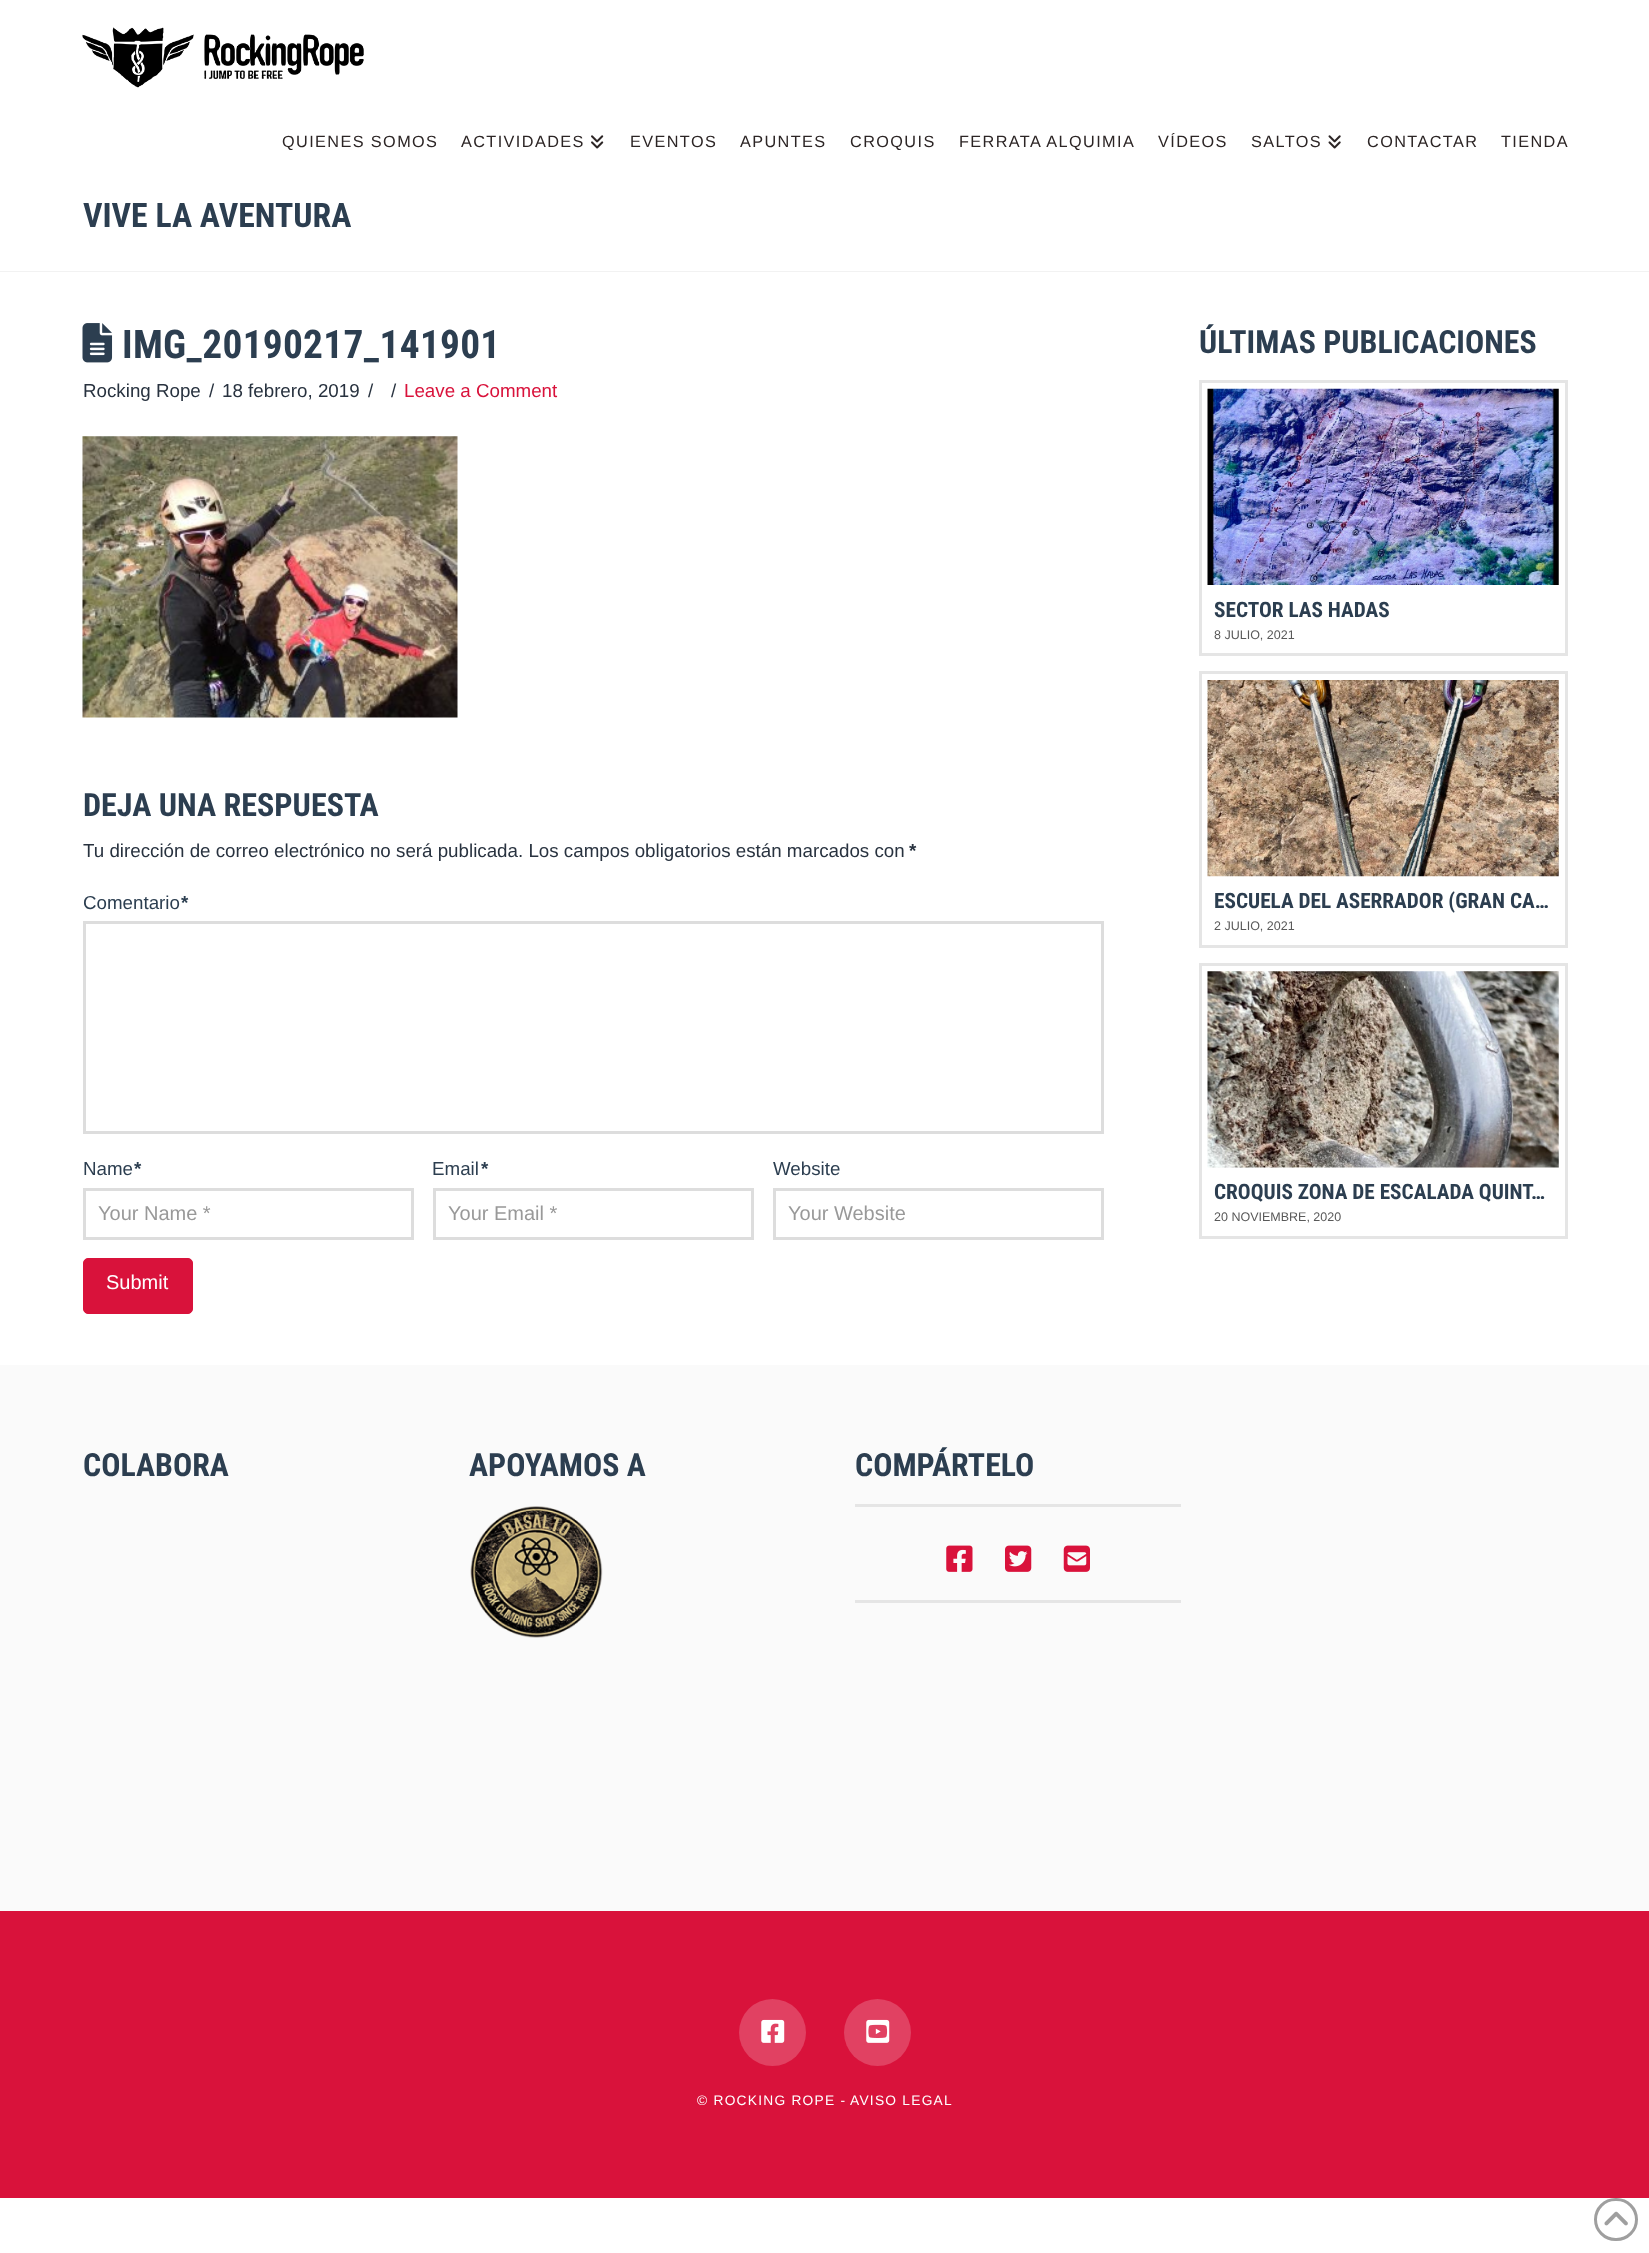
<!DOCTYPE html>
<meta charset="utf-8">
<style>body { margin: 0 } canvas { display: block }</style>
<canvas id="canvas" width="1649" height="2253"></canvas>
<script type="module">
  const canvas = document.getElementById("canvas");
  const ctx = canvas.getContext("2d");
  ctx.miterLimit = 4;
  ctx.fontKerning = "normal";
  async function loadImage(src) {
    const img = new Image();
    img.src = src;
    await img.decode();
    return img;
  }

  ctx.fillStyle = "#ffffff";
  ctx.fillRect(0, 0, 1649, 2253);
  ctx.drawImage(await loadImage("img1.png"), 82, 27, 282, 61);
  ctx.letterSpacing = "1.4px";
  ctx.font = "16.25px Liberation Sans";
  ctx.fillStyle = "#2c2525";
  ctx.fillText("QUIENES SOMOS", 282, 147);
  ctx.fillText("ACTIVIDADES", 461, 147);
  ctx.drawImage(await loadImage("img2.png"), 591, 135, 13, 14);
  ctx.fillText("EVENTOS", 630, 147);
  ctx.fillText("APUNTES", 740, 147);
  ctx.fillText("CROQUIS", 850, 147);
  ctx.fillText("FERRATA ALQUIMIA", 959, 147);
  ctx.fillText("VÍDEOS", 1158, 147);
  ctx.fillText("SALTOS", 1251, 147);
  ctx.drawImage(await loadImage("img3.png"), 1328, 135, 13, 14);
  ctx.fillText("CONTACTAR", 1367, 147);
  ctx.fillText("TIENDA", 1501, 147);
  ctx.fillStyle = "#f2f2f2";
  ctx.fillRect(0, 271, 1649, 1);
  ctx.letterSpacing = "0px";
  ctx.font = "bold 33.75px Roboto Condensed";
  ctx.fillStyle = "#2c3e50";
  ctx.fillText("VIVE LA AVENTURA", 83, 227);
  ctx.drawImage(await loadImage("img4.png"), 82, 323, 31, 40);
  ctx.letterSpacing = "0.25px";
  ctx.font = "bold 39.4px Roboto Condensed";
  ctx.fillText("IMG_20190217_141901", 122, 358);
  ctx.letterSpacing = "0px";
  ctx.font = "18.75px Liberation Sans";
  ctx.fillStyle = "#28323f";
  ctx.fillText("Rocking Rope", 83, 397);
  ctx.fillText("/", 209, 397);
  ctx.fillText("18 febrero, 2019", 222, 397);
  ctx.fillText("/", 368, 397);
  ctx.fillText("/", 391, 397);
  ctx.fillStyle = "#d9123b";
  ctx.fillText("Leave a Comment", 404, 397);
  ctx.drawImage(await loadImage("img5.png"), 82, 436, 376, 282);
  ctx.font = "bold 32.1px Roboto Condensed";
  ctx.fillStyle = "#2c3e50";
  ctx.fillText("DEJA UNA RESPUESTA", 83, 816);
  ctx.font = "18.75px Liberation Sans";
  ctx.fillStyle = "#28323f";
  ctx.fillText("Tu dirección de correo electrónico no será publicada. Los campos obligatorios están marcados con", 83, 857);
  ctx.font = "bold 18.75px Liberation Sans";
  ctx.fillText("*", 909, 857);
  ctx.font = "18.75px Liberation Sans";
  ctx.fillStyle = "#2c3e50";
  ctx.fillText("Comentario", 83, 909);
  ctx.font = "bold 18.75px Liberation Sans";
  ctx.fillText("*", 181, 909);
  ctx.strokeStyle = "#dddddd";
  ctx.lineWidth = 3;
  ctx.strokeRect(84.5, 922.5, 1018, 210);
  ctx.font = "18.75px Liberation Sans";
  ctx.fillText("Name", 83, 1175);
  ctx.font = "bold 18.75px Liberation Sans";
  ctx.fillText("*", 134, 1175);
  ctx.strokeRect(84.5, 1189.5, 328, 49);
  ctx.font = "20px Liberation Sans";
  ctx.fillStyle = "#999999";
  ctx.fillText("Your Name *", 98, 1220);
  ctx.font = "18.75px Liberation Sans";
  ctx.fillStyle = "#2c3e50";
  ctx.fillText("Email", 432, 1175);
  ctx.font = "bold 18.75px Liberation Sans";
  ctx.fillText("*", 481, 1175);
  ctx.strokeRect(434.5, 1189.5, 318, 49);
  ctx.font = "20px Liberation Sans";
  ctx.fillStyle = "#999999";
  ctx.fillText("Your Email *", 448, 1220);
  ctx.font = "18.75px Liberation Sans";
  ctx.fillStyle = "#2c3e50";
  ctx.fillText("Website", 773, 1175);
  ctx.strokeRect(774.5, 1189.5, 328, 49);
  ctx.font = "20px Liberation Sans";
  ctx.fillStyle = "#999999";
  ctx.fillText("Your Website", 788, 1220);
  ctx.fillStyle = "#d9123b";
  ctx.beginPath();
  ctx.roundRect(83.5, 1258.5, 109, 55, 4.5);
  ctx.fill();
  ctx.strokeStyle = "#d9123b";
  ctx.lineWidth = 1;
  ctx.stroke();
  ctx.fillStyle = "#ffffff";
  ctx.fillText("Submit", 106, 1289);
  ctx.font = "bold 31.9px Roboto Condensed";
  ctx.fillStyle = "#2c3e50";
  ctx.fillText("ÚLTIMAS PUBLICACIONES", 1199, 353);
  ctx.strokeStyle = "#e5e5e5";
  ctx.lineWidth = 3;
  ctx.strokeRect(1200.5, 381.5, 366, 273);
  ctx.drawImage(await loadImage("img6.png"), 1207, 388, 352, 197);
  ctx.font = "bold 21.25px Roboto Condensed";
  ctx.fillText("SECTOR LAS HADAS", 1214, 617);
  ctx.font = "12.5px Liberation Sans";
  ctx.fillStyle = "#595959";
  ctx.fillText("8 JULIO, 2021", 1214, 639);
  ctx.strokeRect(1200.5, 672.5, 366, 274);
  ctx.drawImage(await loadImage("img7.png"), 1207, 680, 352, 197);
  ctx.font = "bold 21.25px Roboto Condensed";
  ctx.fillStyle = "#2c3e50";
  ctx.fillText("ESCUELA DEL ASERRADOR (GRAN CA…", 1214, 908);
  ctx.font = "12.5px Liberation Sans";
  ctx.fillStyle = "#595959";
  ctx.fillText("2 JULIO, 2021", 1214, 930);
  ctx.strokeRect(1200.5, 964.5, 366, 273);
  ctx.drawImage(await loadImage("img8.png"), 1207, 971, 352, 197);
  ctx.font = "bold 21.25px Roboto Condensed";
  ctx.fillStyle = "#2c3e50";
  ctx.fillText("CROQUIS ZONA DE ESCALADA QUINT…", 1214, 1199);
  ctx.font = "12.5px Liberation Sans";
  ctx.fillStyle = "#595959";
  ctx.fillText("20 NOVIEMBRE, 2020", 1214, 1221);
  ctx.fillStyle = "#fafafa";
  ctx.fillRect(0, 1365, 1649, 546);
  ctx.font = "bold 31.9px Roboto Condensed";
  ctx.fillStyle = "#2c3e50";
  ctx.fillText("COLABORA", 83, 1476);
  ctx.fillText("APOYAMOS A", 469, 1476);
  ctx.drawImage(await loadImage("img9.png"), 470, 1506, 133, 132);
  ctx.fillText("COMPÁRTELO", 855, 1476);
  ctx.fillStyle = "#e5e5e5";
  ctx.fillRect(855, 1504, 326, 3);
  ctx.fillRect(855, 1600, 326, 3);
  ctx.drawImage(await loadImage("img10.png"), 946, 1545, 27, 27);
  ctx.drawImage(await loadImage("img11.png"), 1005, 1545, 27, 27);
  ctx.drawImage(await loadImage("img12.png"), 1063, 1545, 27, 27);
  ctx.fillStyle = "#d9123b";
  ctx.fillRect(0, 1911, 1649, 287);
  ctx.fillStyle = "#e14162";
  ctx.beginPath();
  ctx.arc(772.5, 2032.5, 33.5, 0, Math.PI * 2);
  ctx.fill();
  ctx.drawImage(await loadImage("img13.png"), 761, 2019, 24, 24);
  ctx.beginPath();
  ctx.arc(877.5, 2032.5, 33.5, 0, Math.PI * 2);
  ctx.fill();
  ctx.drawImage(await loadImage("img14.png"), 866, 2019, 24, 24);
  ctx.letterSpacing = "1.25px";
  ctx.font = "13.75px Liberation Sans";
  ctx.fillStyle = "#ffffff";
  ctx.fillText("© ROCKING ROPE -", 697, 2105);
  ctx.fillText("AVISO LEGAL", 850, 2105);
  ctx.beginPath();
  ctx.roundRect(1595.5, 2199.5, 41, 40, 20);
  ctx.strokeStyle = "#9f9f9f";
  ctx.stroke();
  ctx.drawImage(await loadImage("img15.png"), 1604, 2211, 24, 15);
</script>
